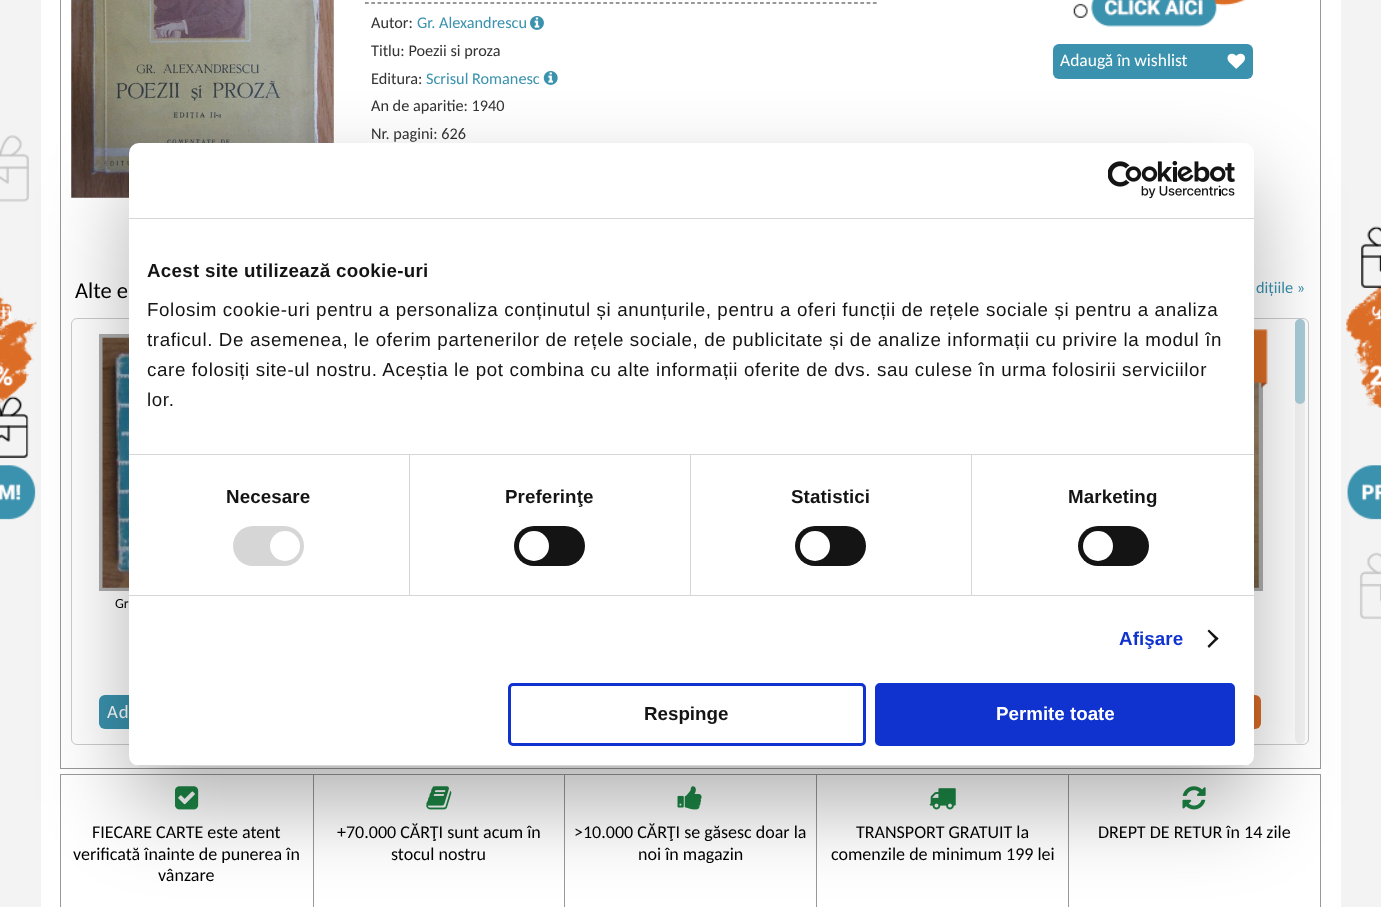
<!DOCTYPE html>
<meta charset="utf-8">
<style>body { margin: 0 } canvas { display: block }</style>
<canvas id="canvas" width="1381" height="907"></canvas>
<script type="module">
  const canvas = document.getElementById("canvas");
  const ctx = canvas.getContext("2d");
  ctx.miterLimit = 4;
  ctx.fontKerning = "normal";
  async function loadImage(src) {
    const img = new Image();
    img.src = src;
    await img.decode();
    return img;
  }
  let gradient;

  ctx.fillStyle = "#f3f3f3";
  ctx.fillRect(0, 0, 1381, 907);
  ctx.fillStyle = "#ffffff";
  ctx.fillRect(41, 0, 1300, 907);
  ctx.strokeStyle = "#999999";
  ctx.strokeRect(60.5, -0.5, 1260, 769);
  ctx.drawImage(await loadImage("img1.png"), 71, 0, 263, 198);
  ctx.beginPath();
  ctx.moveTo(365, 3);
  ctx.lineTo(877.5, 3);
  ctx.strokeStyle = "#333333";
  ctx.lineWidth = 1.2;
  ctx.setLineDash([3.75, 2.52]);
  ctx.stroke();
  ctx.font = "16.25px Carlito";
  ctx.fillStyle = "#333333";
  ctx.fillText("Autor:", 371, 28);
  ctx.fillStyle = "#3a92ae";
  ctx.fillText("Gr. Alexandrescu", 417, 28);
  ctx.drawImage(await loadImage("img2.png"), 530, 16, 14, 14);
  ctx.fillStyle = "#333333";
  ctx.fillText("Titlu: Poezii si proza", 371, 56);
  ctx.fillText("Editura:", 371, 84);
  ctx.fillStyle = "#3a92ae";
  ctx.fillText("Scrisul Romanesc", 426, 84);
  ctx.drawImage(await loadImage("img3.png"), 543, 71, 15, 14);
  ctx.fillStyle = "#333333";
  ctx.fillText("An de aparitie: 1940", 371, 111);
  ctx.fillText("Nr. pagini: 626", 371, 139);
  ctx.drawImage(await loadImage("img4.png"), 1073, 0, 173, 27);
  ctx.fillStyle = "#3a92ae";
  ctx.beginPath();
  ctx.roundRect(1053, 44, 200, 35, 6);
  ctx.fill();
  ctx.font = "17.5px Carlito";
  ctx.fillStyle = "#ffffff";
  ctx.fillText("Adaugă în wishlist", 1060, 66);
  ctx.drawImage(await loadImage("img5.png"), 1227, 53, 18, 16);
  ctx.font = "22.5px Carlito";
  ctx.fillStyle = "#000000";
  ctx.fillText("Alte e", 75, 298);
  ctx.font = "16.25px Carlito";
  ctx.fillStyle = "#3a92ae";
  ctx.fillText("dițiile »", 1256, 293);
  ctx.beginPath();
  ctx.roundRect(71.5, 318.5, 1237, 426, 5.5);
  ctx.strokeStyle = "#cccccc";
  ctx.lineWidth = 1;
  ctx.setLineDash([]);
  ctx.stroke();
  ctx.fillStyle = "#afafaf";
  ctx.fillRect(99, 334, 30, 257);
  ctx.drawImage(await loadImage("img6.png"), 102, 337, 27, 251);
  ctx.font = "14px Carlito";
  ctx.fillStyle = "#000000";
  ctx.fillText("Gr", 115, 608);
  gradient = ctx.createLinearGradient(276, 758, 116, 666);
  gradient.addColorStop(0.21, "#da6c27");
  gradient.addColorStop(0.21, "#3a92ae");
  ctx.fillStyle = gradient;
  ctx.beginPath();
  ctx.roundRect(99, 695, 194, 34, 6);
  ctx.fill();
  ctx.letterSpacing = "1px";
  ctx.font = "18.75px Carlito";
  ctx.fillStyle = "#ffffff";
  ctx.fillText("Ad", 107, 718);
  ctx.fillStyle = "#afafaf";
  ctx.fillRect(1254, 382, 9, 209);
  ctx.drawImage(await loadImage("img8.png"), 1254, 381, 5, 207);
  ctx.drawImage(await loadImage("img7.png"), 1254, 329, 14, 59);
  gradient = ctx.createLinearGradient(1244, 758, 1084, 666);
  gradient.addColorStop(0.21, "#da6c27");
  gradient.addColorStop(0.21, "#3a92ae");
  ctx.fillStyle = gradient;
  ctx.beginPath();
  ctx.roundRect(1068, 695, 193, 34, 6);
  ctx.fill();
  ctx.fillStyle = "#f3f3f3";
  ctx.beginPath();
  ctx.roundRect(1295, 319, 10, 425, 5);
  ctx.fill();
  ctx.fillStyle = "rgba(58, 146, 174, 0.4)";
  ctx.beginPath();
  ctx.roundRect(1295, 319, 10, 85, 5);
  ctx.fill();
  ctx.fillStyle = "#999999";
  ctx.fillRect(60, 774, 1008, 1);
  ctx.fillRect(60, 774, 1, 133);
  ctx.drawImage(await loadImage("img9.png"), 175, 786, 24, 24);
  ctx.letterSpacing = "0px";
  ctx.font = "18px Carlito";
  ctx.fillStyle = "#000000";
  ctx.fillText("FIECARE CARTE este atent", 92, 838);
  ctx.fillText("verificată înainte de punerea în", 73, 860);
  ctx.fillText("vânzare", 158, 881);
  ctx.fillStyle = "#999999";
  ctx.fillRect(313, 774, 1, 133);
  ctx.drawImage(await loadImage("img10.png"), 426, 786, 26, 24);
  ctx.fillStyle = "#000000";
  ctx.fillText("+70.000 CĂRŢI sunt acum în", 337, 838);
  ctx.fillText("stocul nostru", 391, 860);
  ctx.fillStyle = "#999999";
  ctx.fillRect(564, 774, 1, 133);
  ctx.drawImage(await loadImage("img11.png"), 677, 786, 25, 24);
  ctx.fillStyle = "#000000";
  ctx.fillText(">10.000 CĂRŢI se găsesc doar la", 574, 838);
  ctx.fillText("noi în magazin", 638, 860);
  ctx.fillStyle = "#999999";
  ctx.fillRect(816, 774, 1, 133);
  ctx.drawImage(await loadImage("img12.png"), 929, 788, 27, 22);
  ctx.fillStyle = "#000000";
  ctx.fillText("TRANSPORT GRATUIT la", 856, 838);
  ctx.fillText("comenzile de minimum 199 lei", 831, 860);
  ctx.strokeStyle = "#999999";
  ctx.strokeRect(1068.5, 774.5, 252, 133);
  ctx.drawImage(await loadImage("img13.png"), 1182, 786, 24, 24);
  ctx.fillText("DREPT DE RETUR în 14 zile", 1098, 838);
  ctx.drawImage(await loadImage("img14.png"), 0, 135, 37, 385);
  ctx.drawImage(await loadImage("img15.png"), 1346, 226, 35, 393);
  ctx.fillStyle = "rgba(0, 0, 0, 0.3)";
  ctx.filter = "blur(42.5px)";
  ctx.beginPath();
  ctx.roundRect(129, 183, 1125, 623, 10);
  ctx.fill();
  ctx.filter = "none";
  ctx.fillStyle = "#ffffff";
  ctx.beginPath();
  ctx.roundRect(129, 143, 1125, 623, 10);
  ctx.fill();
  ctx.fillStyle = "#d6d6d6";
  ctx.fillRect(129, 218, 1125, 1);
  ctx.drawImage(await loadImage("img16.png"), 1108, 161, 127, 38);
  ctx.fillRect(129, 454, 1125, 1);
  ctx.letterSpacing = "0.3px";
  ctx.font = "bold 18.75px Liberation Sans";
  ctx.fillStyle = "#141414";
  ctx.fillText("Acest site utilizează cookie-uri", 147, 277);
  ctx.letterSpacing = "0.62px";
  ctx.font = "18.75px Liberation Sans";
  ctx.fillText("Folosim cookie-uri pentru a personaliza conținutul și anunțurile, pentru a oferi funcții de rețele sociale și pentru a analiza", 147, 316);
  ctx.fillText("traficul. De asemenea, le oferim partenerilor de rețele sociale, de publicitate și de analize informații cu privire la modul în", 147, 346);
  ctx.fillText("care folosiți site-ul nostru. Aceștia le pot combina cu alte informații oferite de dvs. sau culese în urma folosirii serviciilor", 147, 376);
  ctx.fillText("lor.", 147, 406);
  ctx.fillStyle = "#d6d6d6";
  ctx.fillRect(129, 595, 1125, 1);
  ctx.fillRect(409, 455, 1, 140);
  ctx.letterSpacing = "0.1px";
  ctx.font = "bold 18.75px Liberation Sans";
  ctx.fillStyle = "#141414";
  ctx.fillText("Necesare", 226, 503);
  ctx.fillStyle = "#d6d6d6";
  ctx.beginPath();
  ctx.roundRect(233, 526, 71, 40, 20);
  ctx.fill();
  ctx.fillStyle = "#ffffff";
  ctx.beginPath();
  ctx.arc(285, 546, 15, 0, Math.PI * 2);
  ctx.fill();
  ctx.fillStyle = "#d6d6d6";
  ctx.fillRect(690, 455, 1, 140);
  ctx.fillStyle = "#141414";
  ctx.fillText("Preferinţe", 505, 503);
  ctx.beginPath();
  ctx.roundRect(514, 526, 71, 40, 20);
  ctx.fill();
  ctx.fillStyle = "#ffffff";
  ctx.beginPath();
  ctx.arc(534, 546, 15, 0, Math.PI * 2);
  ctx.fill();
  ctx.fillStyle = "#d6d6d6";
  ctx.fillRect(971, 455, 1, 140);
  ctx.fillStyle = "#141414";
  ctx.fillText("Statistici", 791, 503);
  ctx.beginPath();
  ctx.roundRect(795, 526, 71, 40, 20);
  ctx.fill();
  ctx.fillStyle = "#ffffff";
  ctx.beginPath();
  ctx.arc(815, 546, 15, 0, Math.PI * 2);
  ctx.fill();
  ctx.fillStyle = "#141414";
  ctx.fillText("Marketing", 1068, 503);
  ctx.beginPath();
  ctx.roundRect(1078, 526, 71, 40, 20);
  ctx.fill();
  ctx.fillStyle = "#ffffff";
  ctx.beginPath();
  ctx.arc(1098, 546, 15, 0, Math.PI * 2);
  ctx.fill();
  ctx.fillStyle = "#1032cf";
  ctx.fillText("Afişare", 1119, 645);
  ctx.fillStyle = "#141414";
  ctx.beginPath();
  ctx.moveTo(1209, 629.5);
  ctx.lineTo(1218.5, 638.5);
  ctx.lineTo(1216.5, 640.5);
  ctx.lineTo(1207.5, 631);
  ctx.closePath();
  ctx.fill();
  ctx.beginPath();
  ctx.moveTo(1216.5, 637);
  ctx.lineTo(1218.5, 638.5);
  ctx.lineTo(1209, 648);
  ctx.lineTo(1207.5, 646);
  ctx.closePath();
  ctx.fill();
  ctx.save();
  ctx.beginPath();
  ctx.roundRect(129, 143, 1125, 623, 10);
  ctx.clip();
  ctx.fillStyle = "#d6d6d6";
  ctx.fillRect(129, 765, 1125, 1);
  ctx.restore();
  ctx.beginPath();
  ctx.roundRect(509.5, 684.5, 355, 60, 3.5);
  ctx.strokeStyle = "#1032cf";
  ctx.lineWidth = 3;
  ctx.stroke();
  ctx.letterSpacing = "0px";
  ctx.fillText("Respinge", 644, 720);
  ctx.fillStyle = "#1032cf";
  ctx.beginPath();
  ctx.roundRect(876.5, 684.5, 357, 60, 3.5);
  ctx.fill();
  ctx.stroke();
  ctx.fillStyle = "#ffffff";
  ctx.fillText("Permite toate", 996, 720);
</script>
